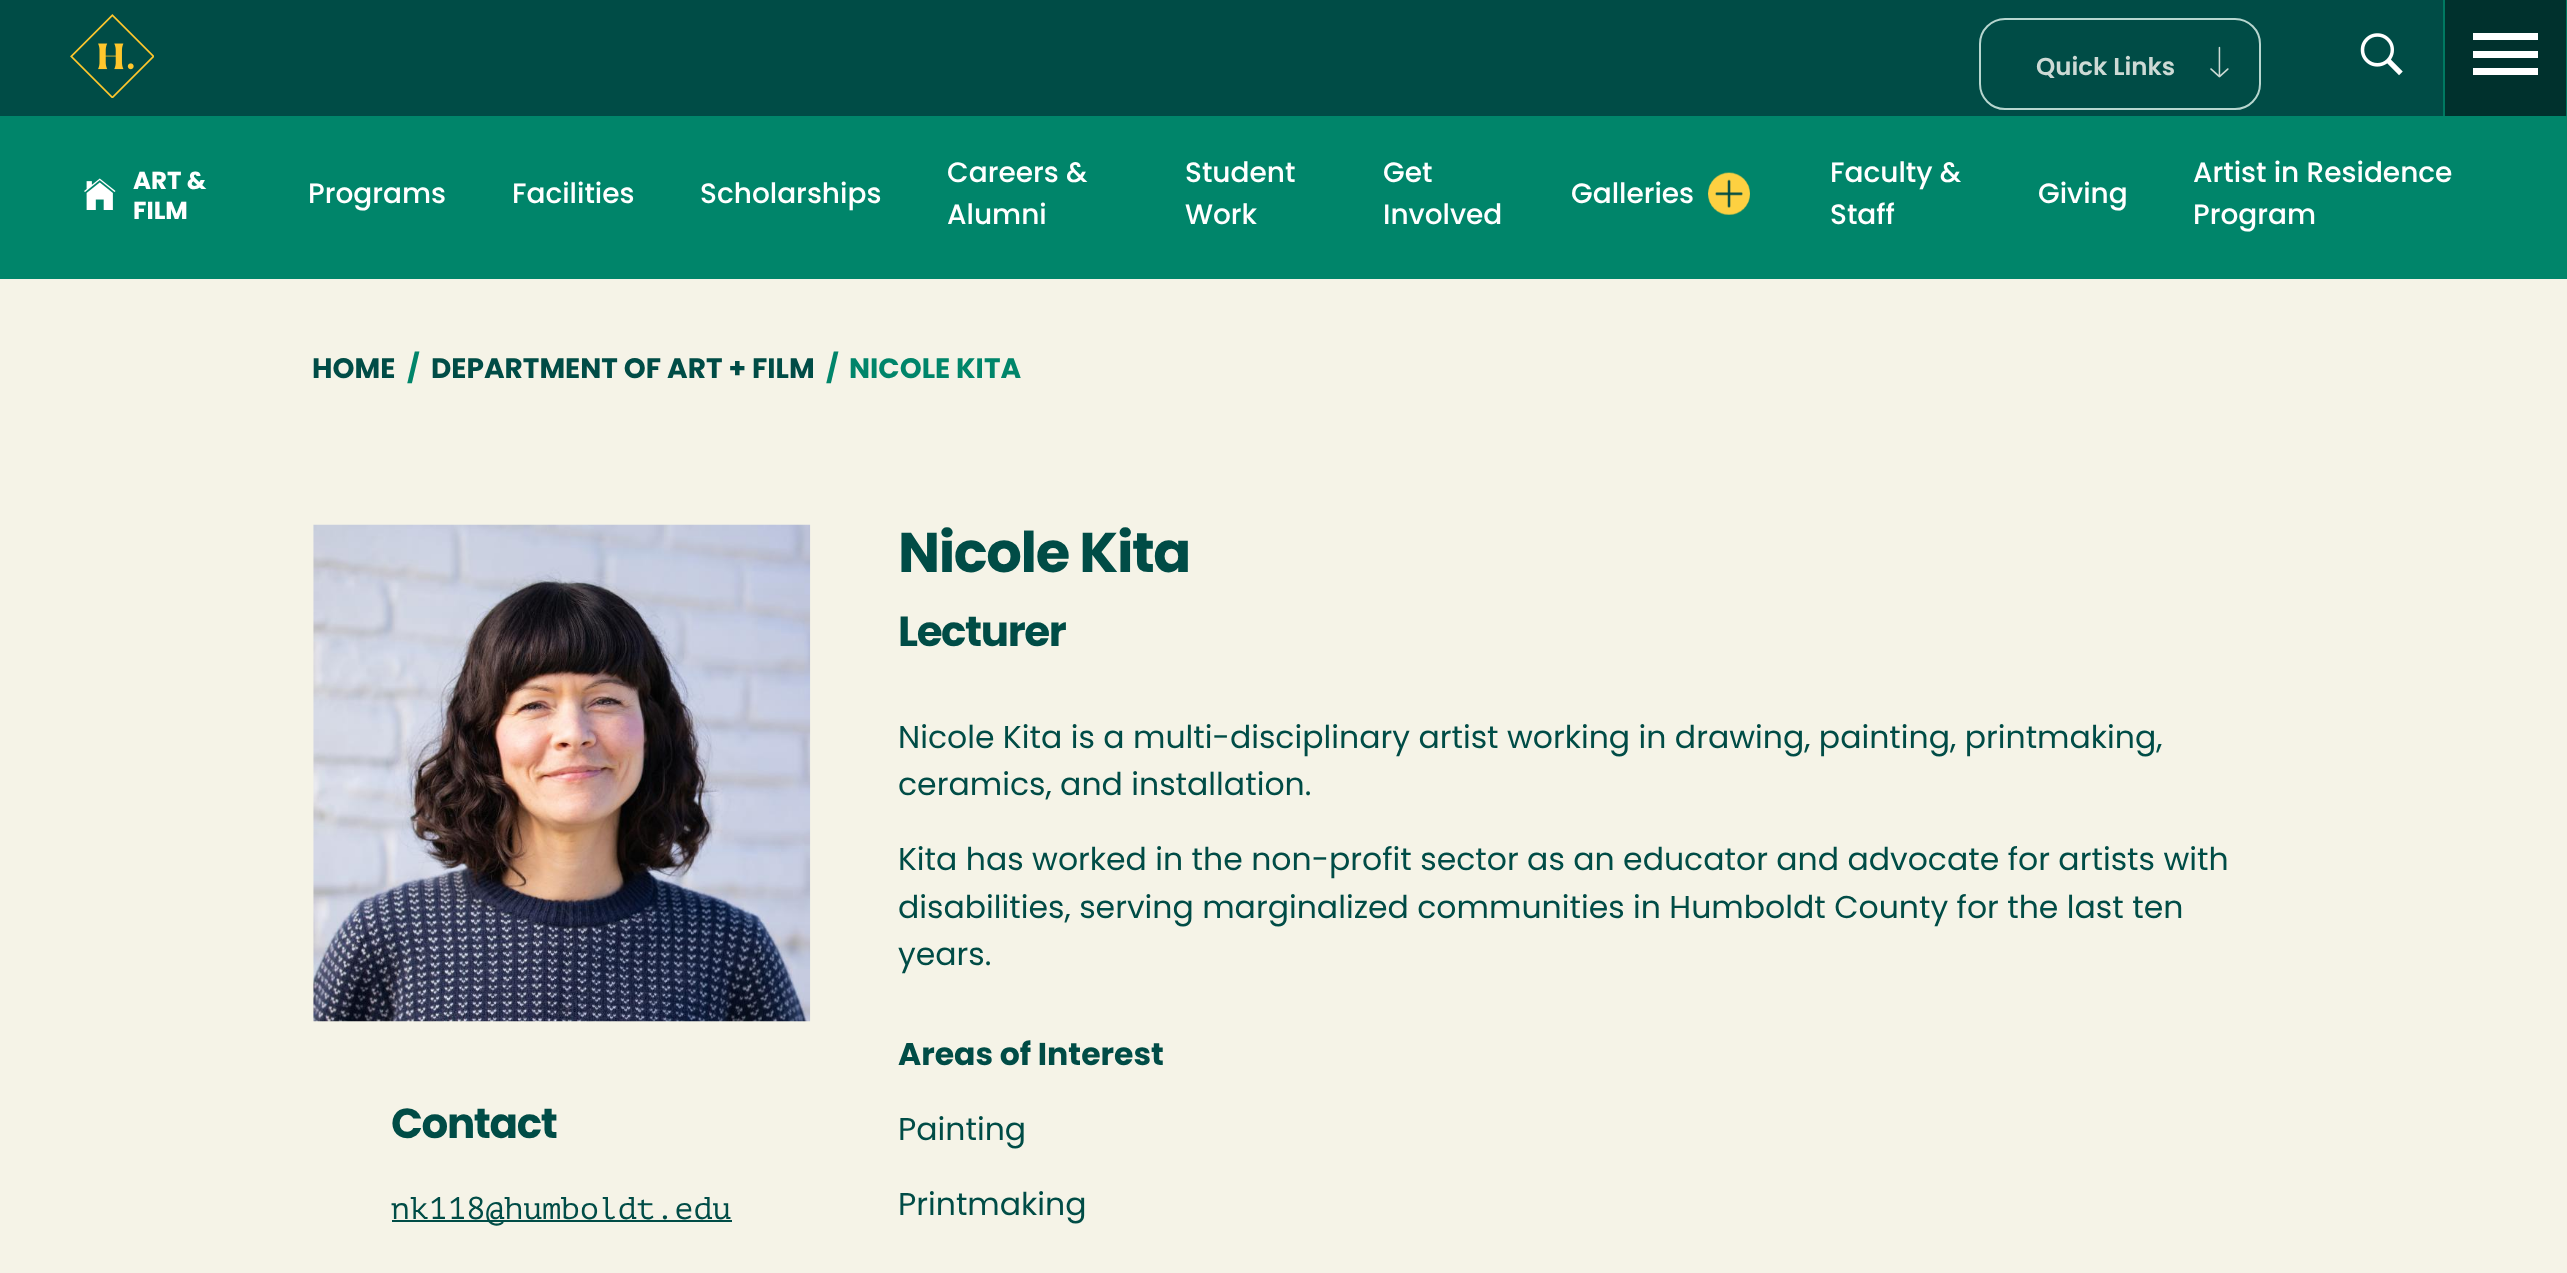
<!DOCTYPE html>
<meta charset="utf-8">
<style>body { margin: 0 } canvas { display: block }</style>
<canvas id="canvas" width="2567" height="1273"></canvas>
<script type="module">
  const canvas = document.getElementById("canvas");
  const ctx = canvas.getContext("2d");
  ctx.miterLimit = 4;
  ctx.fontKerning = "normal";
  async function loadImage(src) {
    const img = new Image();
    img.src = src;
    await img.decode();
    return img;
  }

  ctx.fillStyle = "#f5f3e7";
  ctx.fillRect(0, 0, 2567, 1273);
  ctx.fillStyle = "#004c46";
  ctx.fillRect(0, 0, 2443, 116);
  ctx.fillStyle = "#00856a";
  ctx.fillRect(0, 116, 2567, 163);
  ctx.drawImage(await loadImage("img1.png"), 70, 14, 84, 84);
  ctx.beginPath();
  ctx.roundRect(1980, 19, 280, 90, 25);
  ctx.strokeStyle = "#b7d6cf";
  ctx.lineWidth = 2;
  ctx.stroke();
  ctx.font = "600 24.5px Poppins";
  ctx.fillStyle = "#cddad5";
  ctx.fillText("Quick Links", 2036, 75);
  ctx.drawImage(await loadImage("img2.png"), 2210, 46, 19, 32);
  ctx.drawImage(await loadImage("img3.png"), 2360, 33, 43, 43);
  ctx.fillStyle = "#007961";
  ctx.fillRect(2566, 0, 1, 116);
  ctx.fillRect(2443, 0, 2, 116);
  ctx.fillStyle = "#00312d";
  ctx.fillRect(2445, 0, 121, 116);
  ctx.fillStyle = "#ffffff";
  ctx.fillRect(2473, 68, 65, 7);
  ctx.fillRect(2473, 33, 65, 7);
  ctx.fillRect(2473, 51, 65, 7);
  ctx.drawImage(await loadImage("img4.png"), 84, 178, 32, 32);
  ctx.font = "bold 24.5px Poppins";
  ctx.fillText("ART &", 133, 189);
  ctx.fillText("FILM", 133, 219);
  ctx.font = "500 28px Poppins";
  ctx.fillText("Programs", 308, 203);
  ctx.fillText("Facilities", 512, 203);
  ctx.fillText("Scholarships", 700, 203);
  ctx.fillText("Careers &", 947, 182);
  ctx.fillText("Alumni", 947, 224);
  ctx.fillText("Student", 1185, 182);
  ctx.fillText("Work", 1185, 224);
  ctx.fillText("Get", 1383, 182);
  ctx.fillText("Involved", 1383, 224);
  ctx.fillText("Galleries", 1571, 203);
  ctx.drawImage(await loadImage("img5.png"), 1708, 172, 42, 43);
  ctx.fillText("Faculty &", 1830, 182);
  ctx.fillText("Staff", 1830, 224);
  ctx.fillText("Giving", 2038, 203);
  ctx.fillText("Artist in Residence", 2193, 182);
  ctx.fillText("Program", 2193, 224);
  ctx.font = "bold 28px Poppins";
  ctx.fillStyle = "#004c46";
  ctx.fillText("HOME", 312, 378);
  ctx.fillStyle = "#00856a";
  ctx.fillText("/", 407, 378);
  ctx.fillStyle = "#004c46";
  ctx.fillText("DEPARTMENT OF ART + FILM", 431, 378);
  ctx.fillStyle = "#00856a";
  ctx.fillText("/", 826, 378);
  ctx.fillText("NICOLE KITA", 849, 378);
  ctx.drawImage(await loadImage("img6.png"), 313, 524, 498, 498);
  ctx.letterSpacing = "-1.4px";
  ctx.font = "bold 42px Poppins";
  ctx.fillStyle = "#004c46";
  ctx.fillText("Contact", 391, 1138);
  ctx.fillRect(392, 1220, 340, 2);
  ctx.letterSpacing = "0px";
  ctx.font = "31.5px PT Mono";
  ctx.fillText("nk118@humboldt.edu", 391, 1219);
  ctx.letterSpacing = "-1.4px";
  ctx.font = "bold 56px Poppins";
  ctx.fillText("Nicole Kita", 898, 572);
  ctx.font = "bold 42px Poppins";
  ctx.fillText("Lecturer", 898, 646);
  ctx.letterSpacing = "0px";
  ctx.font = "31.5px Poppins";
  ctx.fillText("Nicole Kita is a multi-disciplinary artist working in drawing, painting, printmaking,", 898, 748);
  ctx.fillText("ceramics, and installation.", 898, 795);
  ctx.fillText("Kita has worked in the non-profit sector as an educator and advocate for artists with", 898, 870);
  ctx.fillText("disabilities, serving marginalized communities in Humboldt County for the last ten", 898, 918);
  ctx.fillText("years.", 898, 965);
  ctx.font = "bold 31.5px Poppins";
  ctx.fillText("Areas of Interest", 898, 1065);
  ctx.font = "31.5px Poppins";
  ctx.fillText("Painting", 898, 1140);
  ctx.fillText("Printmaking", 898, 1215);
</script>
